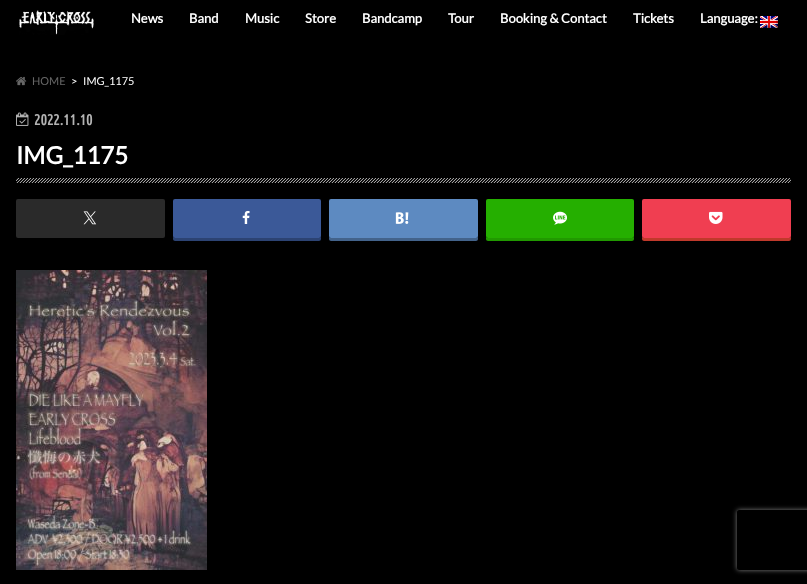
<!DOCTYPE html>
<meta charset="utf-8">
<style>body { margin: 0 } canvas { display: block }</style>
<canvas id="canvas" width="807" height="584"></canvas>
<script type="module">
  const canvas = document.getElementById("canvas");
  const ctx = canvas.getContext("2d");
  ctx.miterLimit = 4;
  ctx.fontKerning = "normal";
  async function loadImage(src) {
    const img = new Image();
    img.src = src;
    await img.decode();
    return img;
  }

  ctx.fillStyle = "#000000";
  ctx.fillRect(0, 0, 807, 584);
  ctx.drawImage(await loadImage("img1.png"), 19, 10, 75, 25);
  ctx.font = "bold 13px Lato";
  ctx.fillStyle = "#ffffff";
  ctx.fillText("News", 131, 23);
  ctx.fillText("Band", 189, 23);
  ctx.fillText("Music", 245, 23);
  ctx.fillText("Store", 305, 23);
  ctx.fillText("Bandcamp", 362, 23);
  ctx.fillText("Tour", 448, 23);
  ctx.fillText("Booking & Contact", 500, 23);
  ctx.fillText("Tickets", 633, 23);
  ctx.fillText("Language:", 700, 23);
  ctx.drawImage(await loadImage("img2.png"), 760, 16, 18, 12);
  ctx.drawImage(await loadImage("img3.png"), 16, 76, 11, 10);
  ctx.font = "11px Lato";
  ctx.fillStyle = "#666666";
  ctx.fillText("HOME", 32, 85);
  ctx.fillStyle = "#ffffff";
  ctx.fillText(">", 71, 85);
  ctx.fillText("IMG_1175", 83, 85);
  ctx.drawImage(await loadImage("img4.png"), 16, 112, 13, 14);
  ctx.font = "bold 15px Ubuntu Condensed";
  ctx.fillStyle = "#b3b3b3";
  ctx.fillText("2022.11.10", 34, 125);
  ctx.drawImage(await loadImage("img5.png"), 16, 178, 775, 5);
  ctx.font = "bold 24px Lato";
  ctx.fillStyle = "#ffffff";
  ctx.fillText("IMG_1175", 16, 164);
  ctx.fillStyle = "#2a2a2a";
  ctx.beginPath();
  ctx.roundRect(16, 199, 149, 39, 2);
  ctx.fill();
  ctx.drawImage(await loadImage("img6.png"), 83, 211, 14, 14);
  ctx.fillStyle = "#2c4373";
  ctx.beginPath();
  ctx.moveTo(173, 236);
  ctx.lineTo(173, 239);
  ctx.bezierCurveTo(173, 240, 174, 241, 175, 241);
  ctx.lineTo(319, 241);
  ctx.bezierCurveTo(320, 241, 321, 240, 321, 239);
  ctx.lineTo(321, 236);
  ctx.bezierCurveTo(321, 237, 320, 238, 319, 238);
  ctx.lineTo(175, 238);
  ctx.bezierCurveTo(174, 238, 173, 237, 173, 236);
  ctx.closePath();
  ctx.fill();
  ctx.fillStyle = "#3b5998";
  ctx.beginPath();
  ctx.roundRect(173, 199, 148, 39, 2);
  ctx.fill();
  ctx.drawImage(await loadImage("img7.png"), 242, 210, 8, 14);
  ctx.fillStyle = "#43638b";
  ctx.beginPath();
  ctx.moveTo(329, 236);
  ctx.lineTo(329, 239);
  ctx.bezierCurveTo(329, 240, 330, 241, 331, 241);
  ctx.lineTo(476, 241);
  ctx.bezierCurveTo(477, 241, 478, 240, 478, 239);
  ctx.lineTo(478, 236);
  ctx.bezierCurveTo(478, 237, 477, 238, 476, 238);
  ctx.lineTo(331, 238);
  ctx.bezierCurveTo(330, 238, 329, 237, 329, 236);
  ctx.closePath();
  ctx.fill();
  ctx.fillStyle = "#5d8ac1";
  ctx.beginPath();
  ctx.roundRect(329, 199, 149, 39, 2);
  ctx.fill();
  ctx.drawImage(await loadImage("img8.png"), 395, 212, 14, 12);
  ctx.fillStyle = "#219900";
  ctx.beginPath();
  ctx.moveTo(486, 236);
  ctx.lineTo(486, 239);
  ctx.bezierCurveTo(486, 240, 487, 241, 488, 241);
  ctx.lineTo(632, 241);
  ctx.bezierCurveTo(633, 241, 634, 240, 634, 239);
  ctx.lineTo(634, 236);
  ctx.bezierCurveTo(634, 237, 633, 238, 632, 238);
  ctx.lineTo(488, 238);
  ctx.bezierCurveTo(487, 238, 486, 237, 486, 236);
  ctx.closePath();
  ctx.fill();
  ctx.fillStyle = "#25af00";
  ctx.beginPath();
  ctx.roundRect(486, 199, 148, 39, 2);
  ctx.fill();
  ctx.drawImage(await loadImage("img9.png"), 553, 211, 14, 14);
  ctx.fillStyle = "#c0392b";
  ctx.beginPath();
  ctx.moveTo(642, 236);
  ctx.lineTo(642, 239);
  ctx.bezierCurveTo(642, 240, 643, 241, 644, 241);
  ctx.lineTo(789, 241);
  ctx.bezierCurveTo(790, 241, 791, 240, 791, 239);
  ctx.lineTo(791, 236);
  ctx.bezierCurveTo(791, 237, 790, 238, 789, 238);
  ctx.lineTo(644, 238);
  ctx.bezierCurveTo(643, 238, 642, 237, 642, 236);
  ctx.closePath();
  ctx.fill();
  ctx.fillStyle = "#f03e51";
  ctx.beginPath();
  ctx.roundRect(642, 199, 149, 39, 2);
  ctx.fill();
  ctx.drawImage(await loadImage("img10.png"), 709, 211, 14, 13);
  ctx.drawImage(await loadImage("img11.png"), 16, 270, 191, 300);
  ctx.save();
  ctx.beginPath();
  ctx.moveTo(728, 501);
  ctx.lineTo(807, 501);
  ctx.lineTo(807, 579);
  ctx.lineTo(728, 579);
  ctx.closePath();
  ctx.moveTo(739, 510);
  ctx.lineTo(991, 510);
  ctx.bezierCurveTo(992, 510, 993, 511, 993, 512);
  ctx.lineTo(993, 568);
  ctx.bezierCurveTo(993, 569, 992, 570, 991, 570);
  ctx.lineTo(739, 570);
  ctx.bezierCurveTo(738, 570, 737, 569, 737, 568);
  ctx.lineTo(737, 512);
  ctx.bezierCurveTo(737, 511, 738, 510, 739, 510);
  ctx.closePath();
  ctx.clip("evenodd");
  ctx.fillStyle = "#808080";
  ctx.filter = "blur(2.5px)";
  ctx.beginPath();
  ctx.roundRect(737, 510, 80, 60, 2);
  ctx.fill();
  ctx.filter = "none";
  ctx.restore();
</script>
